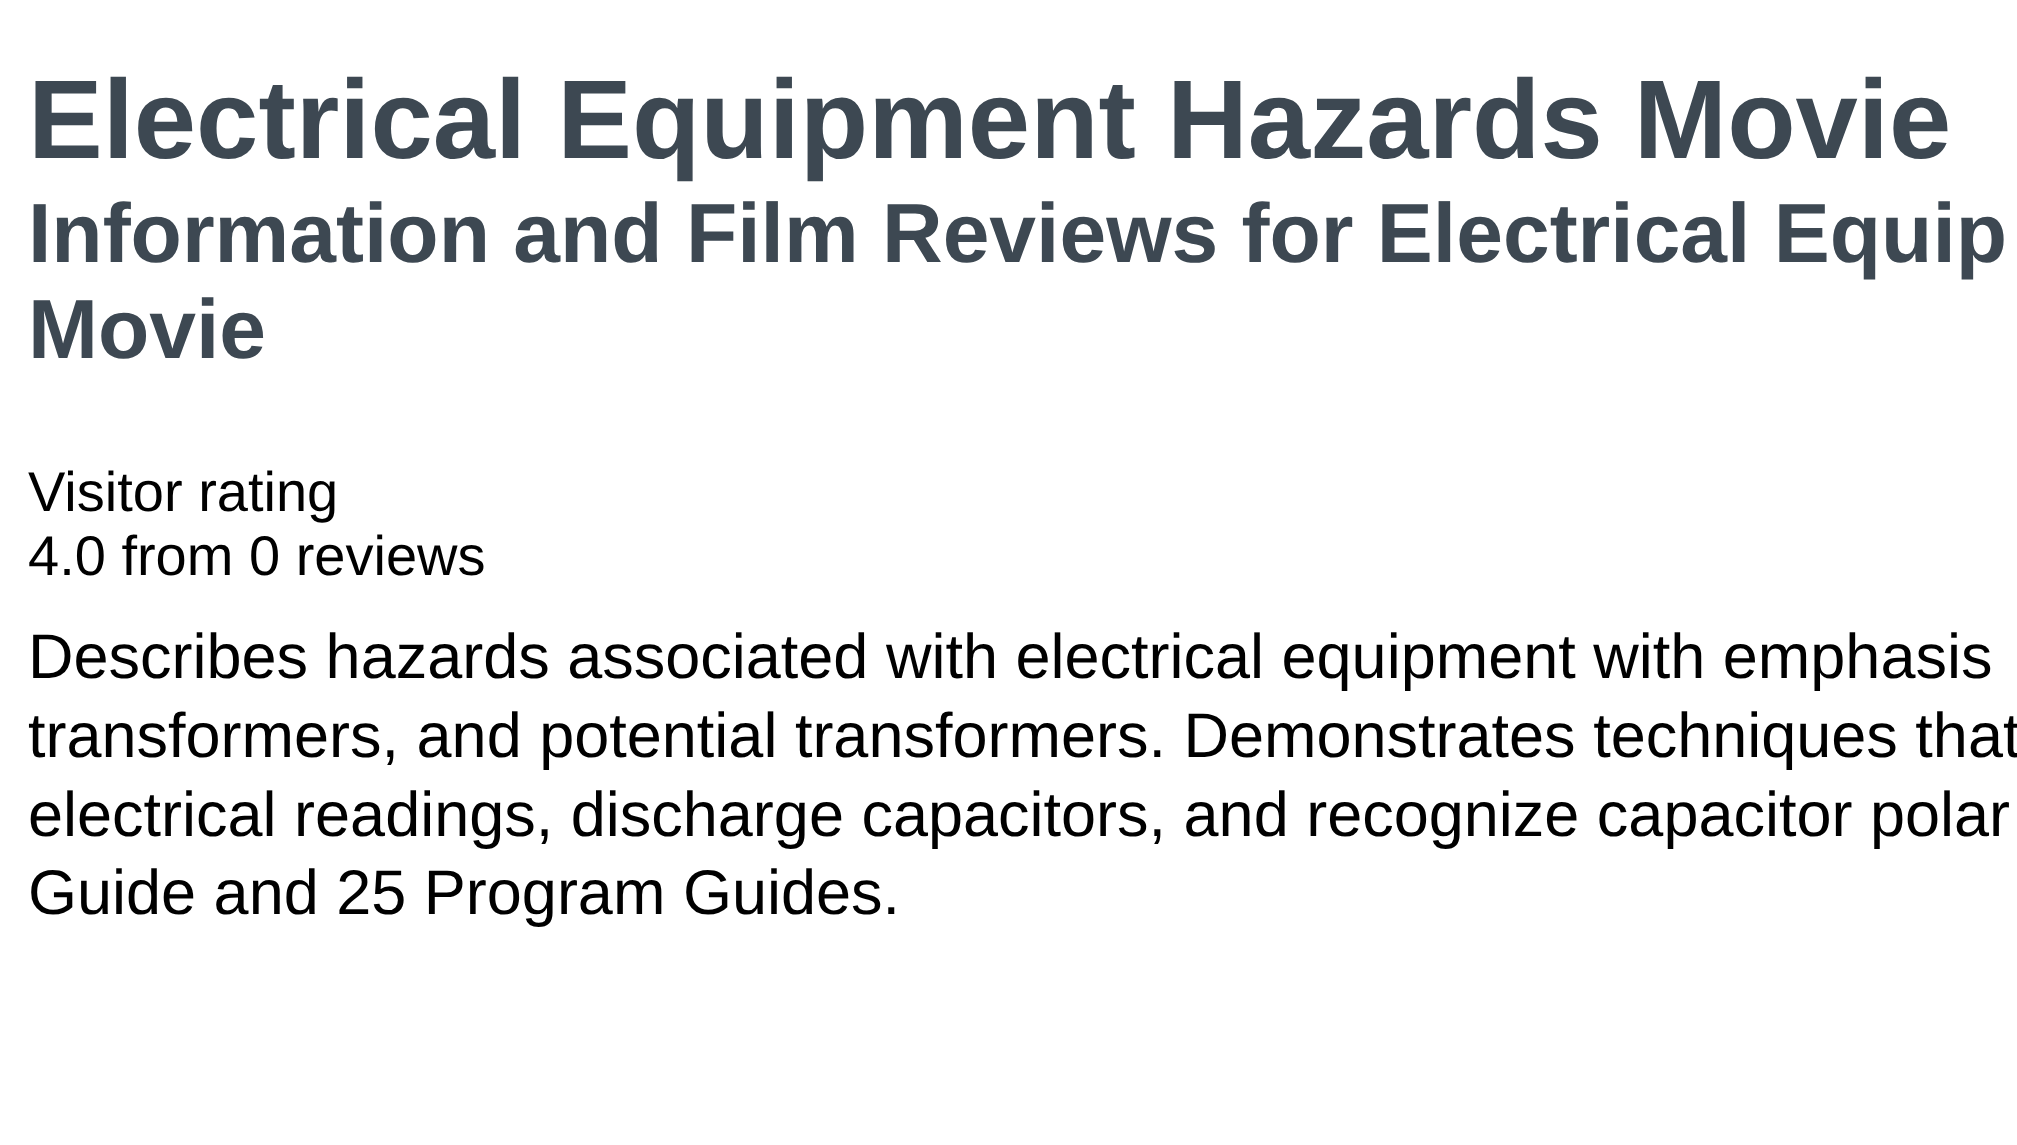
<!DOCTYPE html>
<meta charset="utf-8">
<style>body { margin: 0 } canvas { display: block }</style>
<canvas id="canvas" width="2017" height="1145"></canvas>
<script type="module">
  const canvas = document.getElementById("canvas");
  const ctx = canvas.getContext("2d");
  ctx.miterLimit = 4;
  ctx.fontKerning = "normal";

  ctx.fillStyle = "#ffffff";
  ctx.fillRect(0, 0, 2017, 1145);
  ctx.font = "bold 112px Liberation Sans";
  ctx.fillStyle = "#3d4852";
  ctx.fillText("Electrical Equipment Hazards Movie", 28, 158);
  ctx.font = "bold 84px Liberation Sans";
  ctx.fillText("Information and Film Reviews for Electrical Equip", 28, 262);
  ctx.fillText("Movie", 28, 358);
  ctx.font = "56px Liberation Sans";
  ctx.fillStyle = "#000000";
  ctx.fillText("Visitor rating", 28, 511);
  ctx.fillText("4.0 from 0 reviews", 28, 575);
  ctx.font = "63px Liberation Sans";
  ctx.fillText("Describes hazards associated with electrical equipment with emphasis", 28, 678);
  ctx.fillText("transformers, and potential transformers. Demonstrates techniques that", 28, 757);
  ctx.fillText("electrical readings, discharge capacitors, and recognize capacitor polar", 28, 836);
  ctx.fillText("Guide and 25 Program Guides.", 28, 914);
</script>
